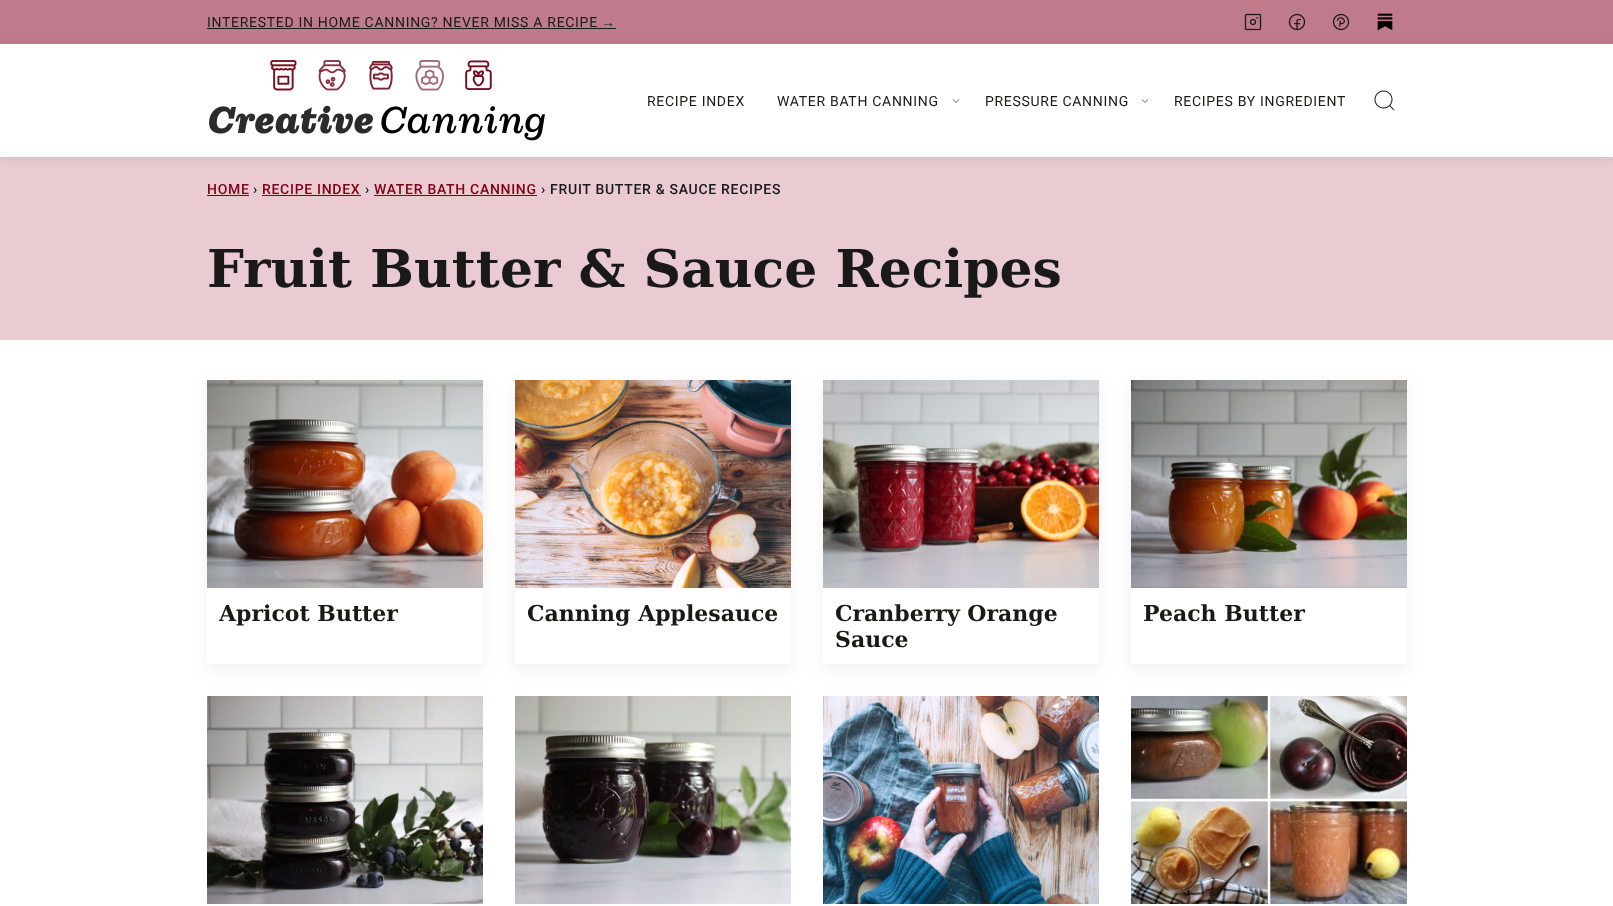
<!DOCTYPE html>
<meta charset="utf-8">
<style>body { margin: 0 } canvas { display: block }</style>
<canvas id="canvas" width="1613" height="906"></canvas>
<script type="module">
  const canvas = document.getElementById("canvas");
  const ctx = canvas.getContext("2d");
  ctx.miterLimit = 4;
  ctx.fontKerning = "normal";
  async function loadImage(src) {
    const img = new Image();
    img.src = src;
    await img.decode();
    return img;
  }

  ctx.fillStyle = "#ffffff";
  ctx.fillRect(0, 0, 1613, 906);
  ctx.fillStyle = "#bf7a8c";
  ctx.fillRect(0, 0, 1613, 44);
  ctx.letterSpacing = "0.7px";
  ctx.font = "14px Roboto";
  ctx.fillStyle = "#191918";
  ctx.fillText("INTERESTED IN HOME CANNING? NEVER MISS A RECIPE", 207, 27);
  ctx.font = "14px Liberation Sans";
  ctx.fillText("→", 601, 27);
  ctx.fillRect(207, 28, 409, 1);
  ctx.drawImage(await loadImage("img1.png"), 1244, 13, 18, 18);
  ctx.drawImage(await loadImage("img2.png"), 1288, 13, 18, 18);
  ctx.drawImage(await loadImage("img3.png"), 1332, 13, 18, 18);
  ctx.drawImage(await loadImage("img4.png"), 1377, 13, 16, 18);
  ctx.fillStyle = "#eacbd1";
  ctx.fillRect(0, 157, 1613, 183);
  ctx.fillStyle = "rgba(97, 97, 97, 0.15)";
  ctx.filter = "blur(4px)";
  ctx.beginPath();
  ctx.rect(0, 46, 1613, 113);
  ctx.fill();
  ctx.filter = "none";
  ctx.fillStyle = "#ffffff";
  ctx.fillRect(0, 44, 1613, 113);
  ctx.drawImage(await loadImage("img5.png"), 209, 60, 336, 81);
  ctx.font = "14px Roboto";
  ctx.fillStyle = "#191918";
  ctx.fillText("RECIPE INDEX", 647, 106);
  ctx.fillText("WATER BATH CANNING", 777, 106);
  ctx.drawImage(await loadImage("img6.png"), 952, 99, 8, 4);
  ctx.fillText("PRESSURE CANNING", 985, 106);
  ctx.drawImage(await loadImage("img6.png"), 1141, 99, 8, 4);
  ctx.fillText("RECIPES BY INGREDIENT", 1174, 106);
  ctx.drawImage(await loadImage("img7.png"), 1374, 90, 21, 21);
  ctx.font = "500 14px Roboto";
  ctx.fillStyle = "#7f0018";
  ctx.fillText("HOME", 207, 194);
  ctx.fillRect(207, 195, 42, 1);
  ctx.fillStyle = "#191918";
  ctx.fillText("›", 253, 194);
  ctx.fillStyle = "#7f0018";
  ctx.fillText("RECIPE INDEX", 262, 194);
  ctx.fillRect(262, 195, 99, 1);
  ctx.fillStyle = "#191918";
  ctx.fillText("›", 365, 194);
  ctx.fillStyle = "#7f0018";
  ctx.fillText("WATER BATH CANNING", 374, 194);
  ctx.fillRect(374, 195, 163, 1);
  ctx.fillStyle = "#191918";
  ctx.fillText("› FRUIT BUTTER & SAUCE RECIPES", 541, 194);
  ctx.letterSpacing = "0px";
  ctx.font = "bold 52px DejaVu Serif";
  ctx.fillText("Fruit Butter & Sauce Recipes", 207, 287);
  ctx.save();
  ctx.beginPath();
  ctx.moveTo(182, 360);
  ctx.lineTo(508, 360);
  ctx.lineTo(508, 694);
  ctx.lineTo(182, 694);
  ctx.closePath();
  ctx.moveTo(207, 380);
  ctx.lineTo(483, 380);
  ctx.lineTo(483, 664);
  ctx.lineTo(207, 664);
  ctx.closePath();
  ctx.clip("evenodd");
  ctx.fillStyle = "rgba(97, 97, 97, 0.1)";
  ctx.filter = "blur(8px)";
  ctx.beginPath();
  ctx.rect(207, 385, 276, 284);
  ctx.fill();
  ctx.filter = "none";
  ctx.restore();
  ctx.drawImage(await loadImage("img8.png"), 207, 380, 276, 208);
  ctx.font = "bold 22px DejaVu Serif";
  ctx.fillText("Apricot Butter", 219, 621);
  ctx.save();
  ctx.beginPath();
  ctx.moveTo(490, 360);
  ctx.lineTo(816, 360);
  ctx.lineTo(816, 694);
  ctx.lineTo(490, 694);
  ctx.closePath();
  ctx.moveTo(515, 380);
  ctx.lineTo(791, 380);
  ctx.lineTo(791, 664);
  ctx.lineTo(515, 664);
  ctx.closePath();
  ctx.clip("evenodd");
  ctx.fillStyle = "rgba(97, 97, 97, 0.1)";
  ctx.filter = "blur(8px)";
  ctx.beginPath();
  ctx.rect(515, 385, 276, 284);
  ctx.fill();
  ctx.filter = "none";
  ctx.restore();
  ctx.drawImage(await loadImage("img9.png"), 515, 380, 276, 208);
  ctx.fillText("Canning Applesauce", 527, 621);
  ctx.save();
  ctx.beginPath();
  ctx.moveTo(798, 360);
  ctx.lineTo(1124, 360);
  ctx.lineTo(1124, 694);
  ctx.lineTo(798, 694);
  ctx.closePath();
  ctx.moveTo(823, 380);
  ctx.lineTo(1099, 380);
  ctx.lineTo(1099, 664);
  ctx.lineTo(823, 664);
  ctx.closePath();
  ctx.clip("evenodd");
  ctx.fillStyle = "rgba(97, 97, 97, 0.1)";
  ctx.filter = "blur(8px)";
  ctx.beginPath();
  ctx.rect(823, 385, 276, 284);
  ctx.fill();
  ctx.filter = "none";
  ctx.restore();
  ctx.drawImage(await loadImage("img10.png"), 823, 380, 276, 208);
  ctx.fillText("Cranberry Orange", 835, 621);
  ctx.fillText("Sauce", 835, 647);
  ctx.save();
  ctx.beginPath();
  ctx.moveTo(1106, 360);
  ctx.lineTo(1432, 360);
  ctx.lineTo(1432, 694);
  ctx.lineTo(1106, 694);
  ctx.closePath();
  ctx.moveTo(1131, 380);
  ctx.lineTo(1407, 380);
  ctx.lineTo(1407, 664);
  ctx.lineTo(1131, 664);
  ctx.closePath();
  ctx.clip("evenodd");
  ctx.fillStyle = "rgba(97, 97, 97, 0.1)";
  ctx.filter = "blur(8px)";
  ctx.beginPath();
  ctx.rect(1131, 385, 276, 284);
  ctx.fill();
  ctx.filter = "none";
  ctx.restore();
  ctx.drawImage(await loadImage("img11.png"), 1131, 380, 276, 208);
  ctx.fillText("Peach Butter", 1143, 621);
  ctx.drawImage(await loadImage("img12.png"), 207, 696, 276, 208);
  ctx.drawImage(await loadImage("img13.png"), 515, 696, 276, 208);
  ctx.drawImage(await loadImage("img14.png"), 823, 696, 276, 208);
  ctx.drawImage(await loadImage("img15.png"), 1131, 696, 276, 208);
</script>
